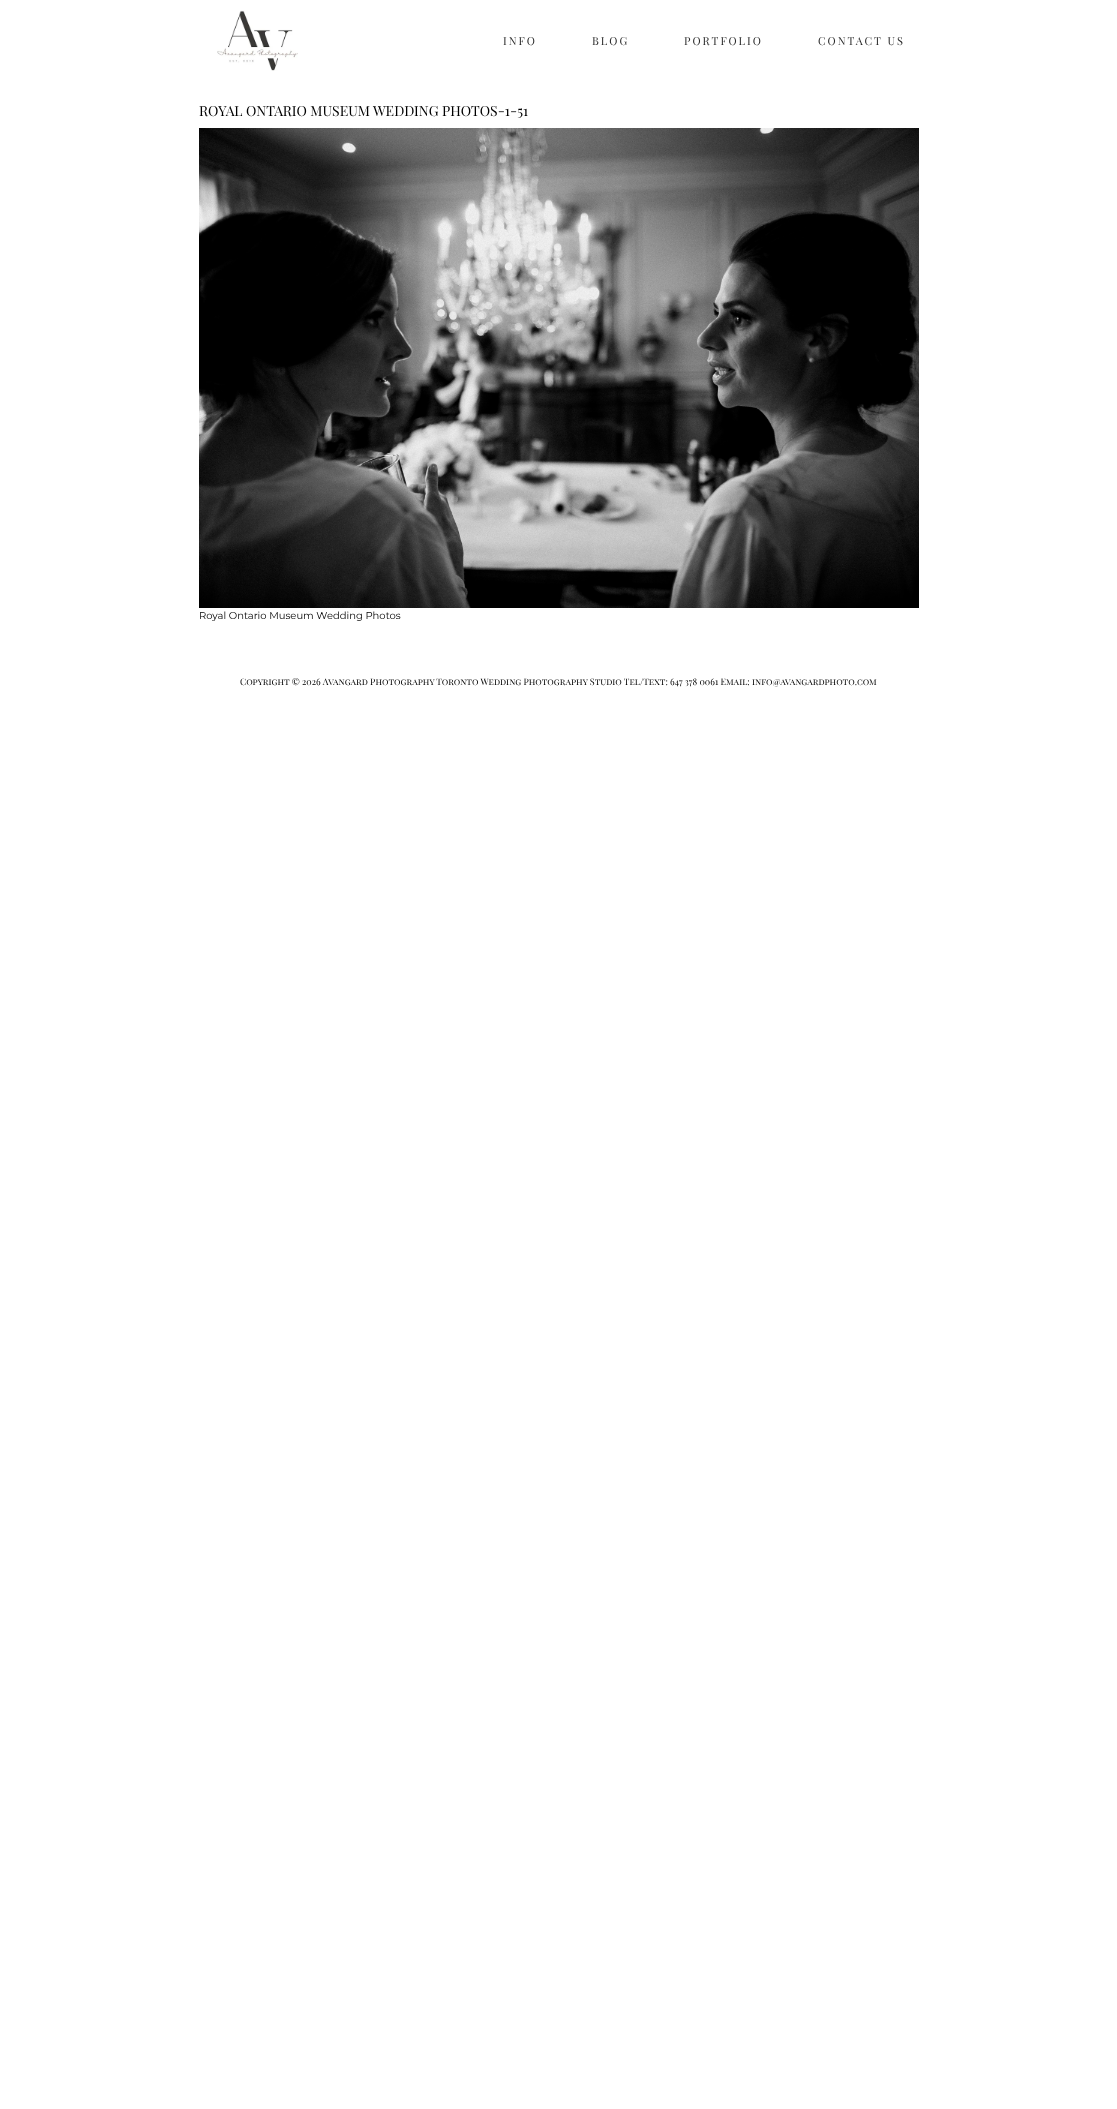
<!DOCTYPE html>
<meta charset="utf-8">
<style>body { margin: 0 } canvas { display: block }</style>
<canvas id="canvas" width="1117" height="2109"></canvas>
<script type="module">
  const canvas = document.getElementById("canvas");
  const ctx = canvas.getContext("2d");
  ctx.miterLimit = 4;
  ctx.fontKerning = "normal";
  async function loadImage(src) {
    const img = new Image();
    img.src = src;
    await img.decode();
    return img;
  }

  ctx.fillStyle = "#ffffff";
  ctx.fillRect(0, 0, 1117, 2109);
  ctx.drawImage(await loadImage("img1.png"), 217, 10, 81, 61);
  ctx.letterSpacing = "2px";
  ctx.font = "11px Playfair Display SC";
  ctx.fillStyle = "#2b2b2b";
  ctx.fillText("INFO", 503, 45);
  ctx.fillText("BLOG", 592, 45);
  ctx.fillText("PORTFOLIO", 684, 45);
  ctx.fillText("CONTACT US", 818, 45);
  ctx.letterSpacing = "0px";
  ctx.font = "14px Playfair Display SC";
  ctx.fillStyle = "#000000";
  ctx.fillText("ROYAL ONTARIO MUSEUM WEDDING PHOTOS-1-51", 199, 116);
  ctx.drawImage(await loadImage("img2.png"), 199, 128, 720, 480);
  ctx.font = "100 10px Montserrat";
  ctx.fillText("Royal Ontario Museum Wedding Photos", 199, 619);
  ctx.font = "9px Playfair Display SC";
  ctx.fillText("Copyright © 2026 Avangard Photography Toronto Wedding Photography Studio Tel/Text: 647 378 0061 Email: info@avangardphoto.com", 240, 685);
</script>
